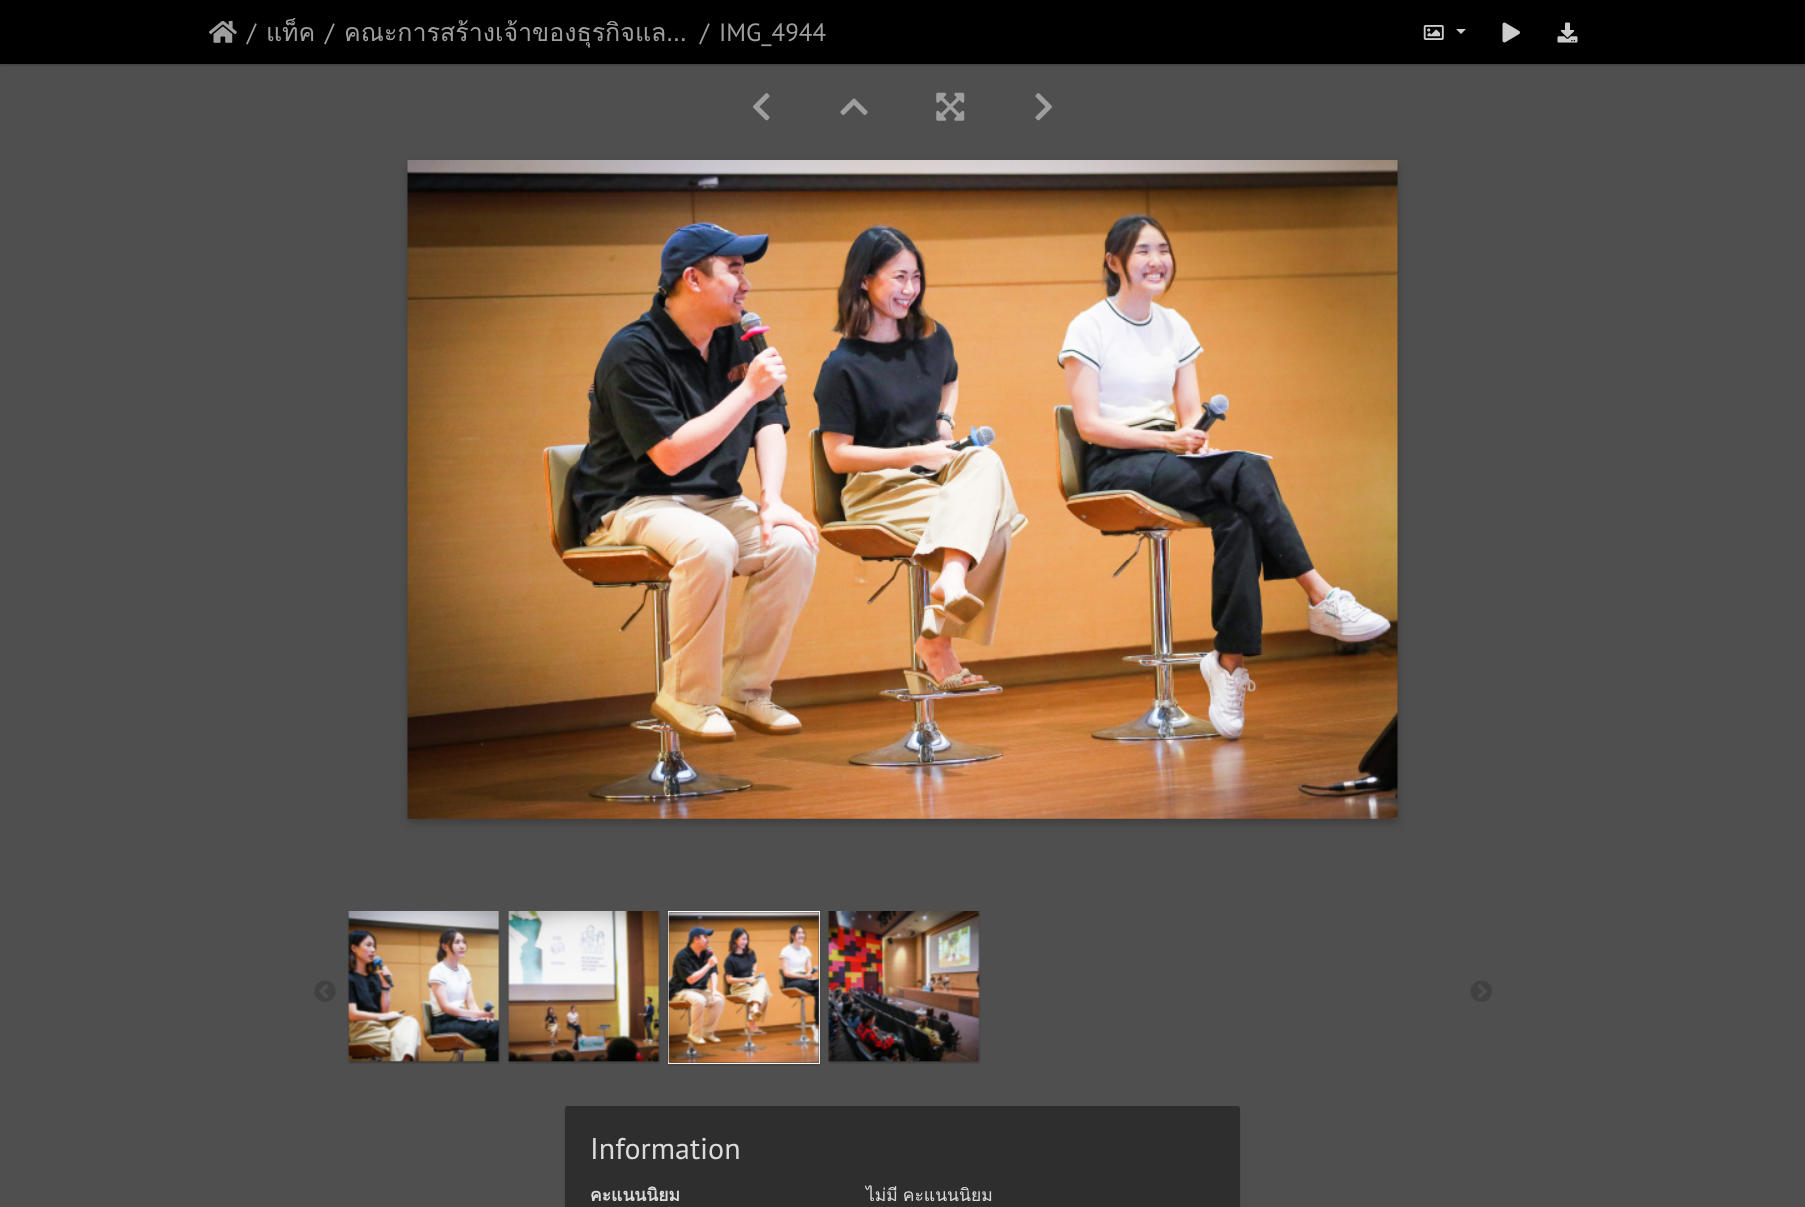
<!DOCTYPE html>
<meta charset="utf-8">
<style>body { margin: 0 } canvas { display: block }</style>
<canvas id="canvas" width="1805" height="1207"></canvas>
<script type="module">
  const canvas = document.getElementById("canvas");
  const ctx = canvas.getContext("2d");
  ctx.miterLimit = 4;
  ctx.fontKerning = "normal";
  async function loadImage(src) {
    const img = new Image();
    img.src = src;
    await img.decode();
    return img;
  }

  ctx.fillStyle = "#4f4f4f";
  ctx.fillRect(0, 0, 1805, 1207);
  ctx.fillStyle = "rgba(0, 0, 0, 0.24)";
  ctx.filter = "blur(1px)";
  ctx.beginPath();
  ctx.rect(0, 1, 1805, 64);
  ctx.fill();
  ctx.filter = "none";
  ctx.fillStyle = "#000000";
  ctx.fillRect(0, 0, 1805, 64);
  ctx.drawImage(await loadImage("img1.png"), 209, 20, 28, 23);
  ctx.font = "25px PT Sans";
  ctx.fillStyle = "#9e9e9e";
  ctx.fillText("/", 247, 41);
  ctx.font = "25px Loma";
  ctx.fillText("แท็ค", 266, 41);
  ctx.font = "25px PT Sans";
  ctx.fillText("/", 325, 41);
  ctx.font = "25px Loma";
  ctx.fillText("คณะการสร้างเจ้าของธุรกิจแล…", 344, 41);
  ctx.font = "25px PT Sans";
  ctx.fillText("/", 700, 41);
  ctx.fillText("IMG_4944", 719, 41);
  ctx.drawImage(await loadImage("img2.png"), 1423, 25, 21, 15);
  ctx.fillStyle = "#cccccc";
  ctx.beginPath();
  ctx.moveTo(1456, 29);
  ctx.lineTo(1466, 29);
  ctx.lineTo(1461, 34);
  ctx.closePath();
  ctx.fill();
  ctx.drawImage(await loadImage("img3.png"), 1502, 22, 18, 21);
  ctx.drawImage(await loadImage("img4.png"), 1557, 22, 21, 21);
  ctx.drawImage(await loadImage("img5.png"), 753, 93, 17, 28);
  ctx.drawImage(await loadImage("img6.png"), 840, 98, 28, 17);
  ctx.drawImage(await loadImage("img7.png"), 936, 92, 29, 29);
  ctx.drawImage(await loadImage("img8.png"), 1035, 93, 17, 28);
  ctx.fillStyle = "rgba(0, 0, 0, 0.23)";
  ctx.filter = "blur(4px)";
  ctx.beginPath();
  ctx.rect(408, 164, 990, 659);
  ctx.fill();
  ctx.filter = "none";
  ctx.drawImage(await loadImage("img9.png"), 407, 160, 991, 659);
  ctx.drawImage(await loadImage("img10.png"), 314, 980, 22, 22);
  ctx.save();
  ctx.beginPath();
  ctx.moveTo(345, 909);
  ctx.lineTo(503, 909);
  ctx.lineTo(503, 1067);
  ctx.lineTo(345, 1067);
  ctx.closePath();
  ctx.moveTo(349, 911);
  ctx.lineTo(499, 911);
  ctx.lineTo(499, 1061);
  ctx.lineTo(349, 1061);
  ctx.closePath();
  ctx.clip("evenodd");
  ctx.fillStyle = "rgba(0, 0, 0, 0.24)";
  ctx.filter = "blur(1px)";
  ctx.beginPath();
  ctx.rect(349, 913, 150, 150);
  ctx.fill();
  ctx.filter = "none";
  ctx.restore();
  ctx.drawImage(await loadImage("img11.png"), 348, 911, 152, 151);
  ctx.save();
  ctx.beginPath();
  ctx.moveTo(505, 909);
  ctx.lineTo(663, 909);
  ctx.lineTo(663, 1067);
  ctx.lineTo(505, 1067);
  ctx.closePath();
  ctx.moveTo(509, 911);
  ctx.lineTo(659, 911);
  ctx.lineTo(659, 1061);
  ctx.lineTo(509, 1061);
  ctx.closePath();
  ctx.clip("evenodd");
  ctx.fillStyle = "rgba(0, 0, 0, 0.24)";
  ctx.filter = "blur(1px)";
  ctx.beginPath();
  ctx.rect(509, 913, 150, 150);
  ctx.fill();
  ctx.filter = "none";
  ctx.restore();
  ctx.drawImage(await loadImage("img12.png"), 508, 911, 152, 151);
  ctx.save();
  ctx.beginPath();
  ctx.moveTo(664, 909);
  ctx.lineTo(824, 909);
  ctx.lineTo(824, 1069);
  ctx.lineTo(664, 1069);
  ctx.closePath();
  ctx.moveTo(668, 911);
  ctx.lineTo(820, 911);
  ctx.lineTo(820, 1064);
  ctx.lineTo(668, 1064);
  ctx.closePath();
  ctx.clip("evenodd");
  ctx.fillStyle = "rgba(0, 0, 0, 0.24)";
  ctx.filter = "blur(1px)";
  ctx.beginPath();
  ctx.rect(668, 913, 152, 152);
  ctx.fill();
  ctx.filter = "none";
  ctx.restore();
  ctx.strokeStyle = "#ffffff";
  ctx.strokeRect(668.5, 911.5, 151, 152);
  ctx.drawImage(await loadImage("img13.png"), 668, 912, 152, 152);
  ctx.save();
  ctx.beginPath();
  ctx.moveTo(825, 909);
  ctx.lineTo(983, 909);
  ctx.lineTo(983, 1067);
  ctx.lineTo(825, 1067);
  ctx.closePath();
  ctx.moveTo(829, 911);
  ctx.lineTo(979, 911);
  ctx.lineTo(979, 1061);
  ctx.lineTo(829, 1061);
  ctx.closePath();
  ctx.clip("evenodd");
  ctx.fillStyle = "rgba(0, 0, 0, 0.24)";
  ctx.filter = "blur(1px)";
  ctx.beginPath();
  ctx.rect(829, 913, 150, 150);
  ctx.fill();
  ctx.filter = "none";
  ctx.restore();
  ctx.drawImage(await loadImage("img14.png"), 828, 911, 152, 151);
  ctx.drawImage(await loadImage("img15.png"), 1470, 980, 22, 22);
  ctx.fillStyle = "rgba(0, 0, 0, 0.14)";
  ctx.filter = "blur(1px)";
  ctx.beginPath();
  ctx.roundRect(565, 1109, 675, 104, 2.5);
  ctx.fill();
  ctx.filter = "none";
  ctx.fillStyle = "#2e2e2e";
  ctx.beginPath();
  ctx.roundRect(565, 1106, 675, 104, 2.5);
  ctx.fill();
  ctx.font = "30px PT Sans";
  ctx.fillStyle = "#dbdbdb";
  ctx.fillText("Information", 590, 1159);
  ctx.font = "bold 17.5px Loma";
  ctx.fillText("คะแนนนิยม", 590, 1201);
  ctx.wordSpacing = "-1px";
  ctx.font = "17.5px Loma";
  ctx.fillText("ไม่มี คะแนนนิยม", 866, 1201);
</script>
